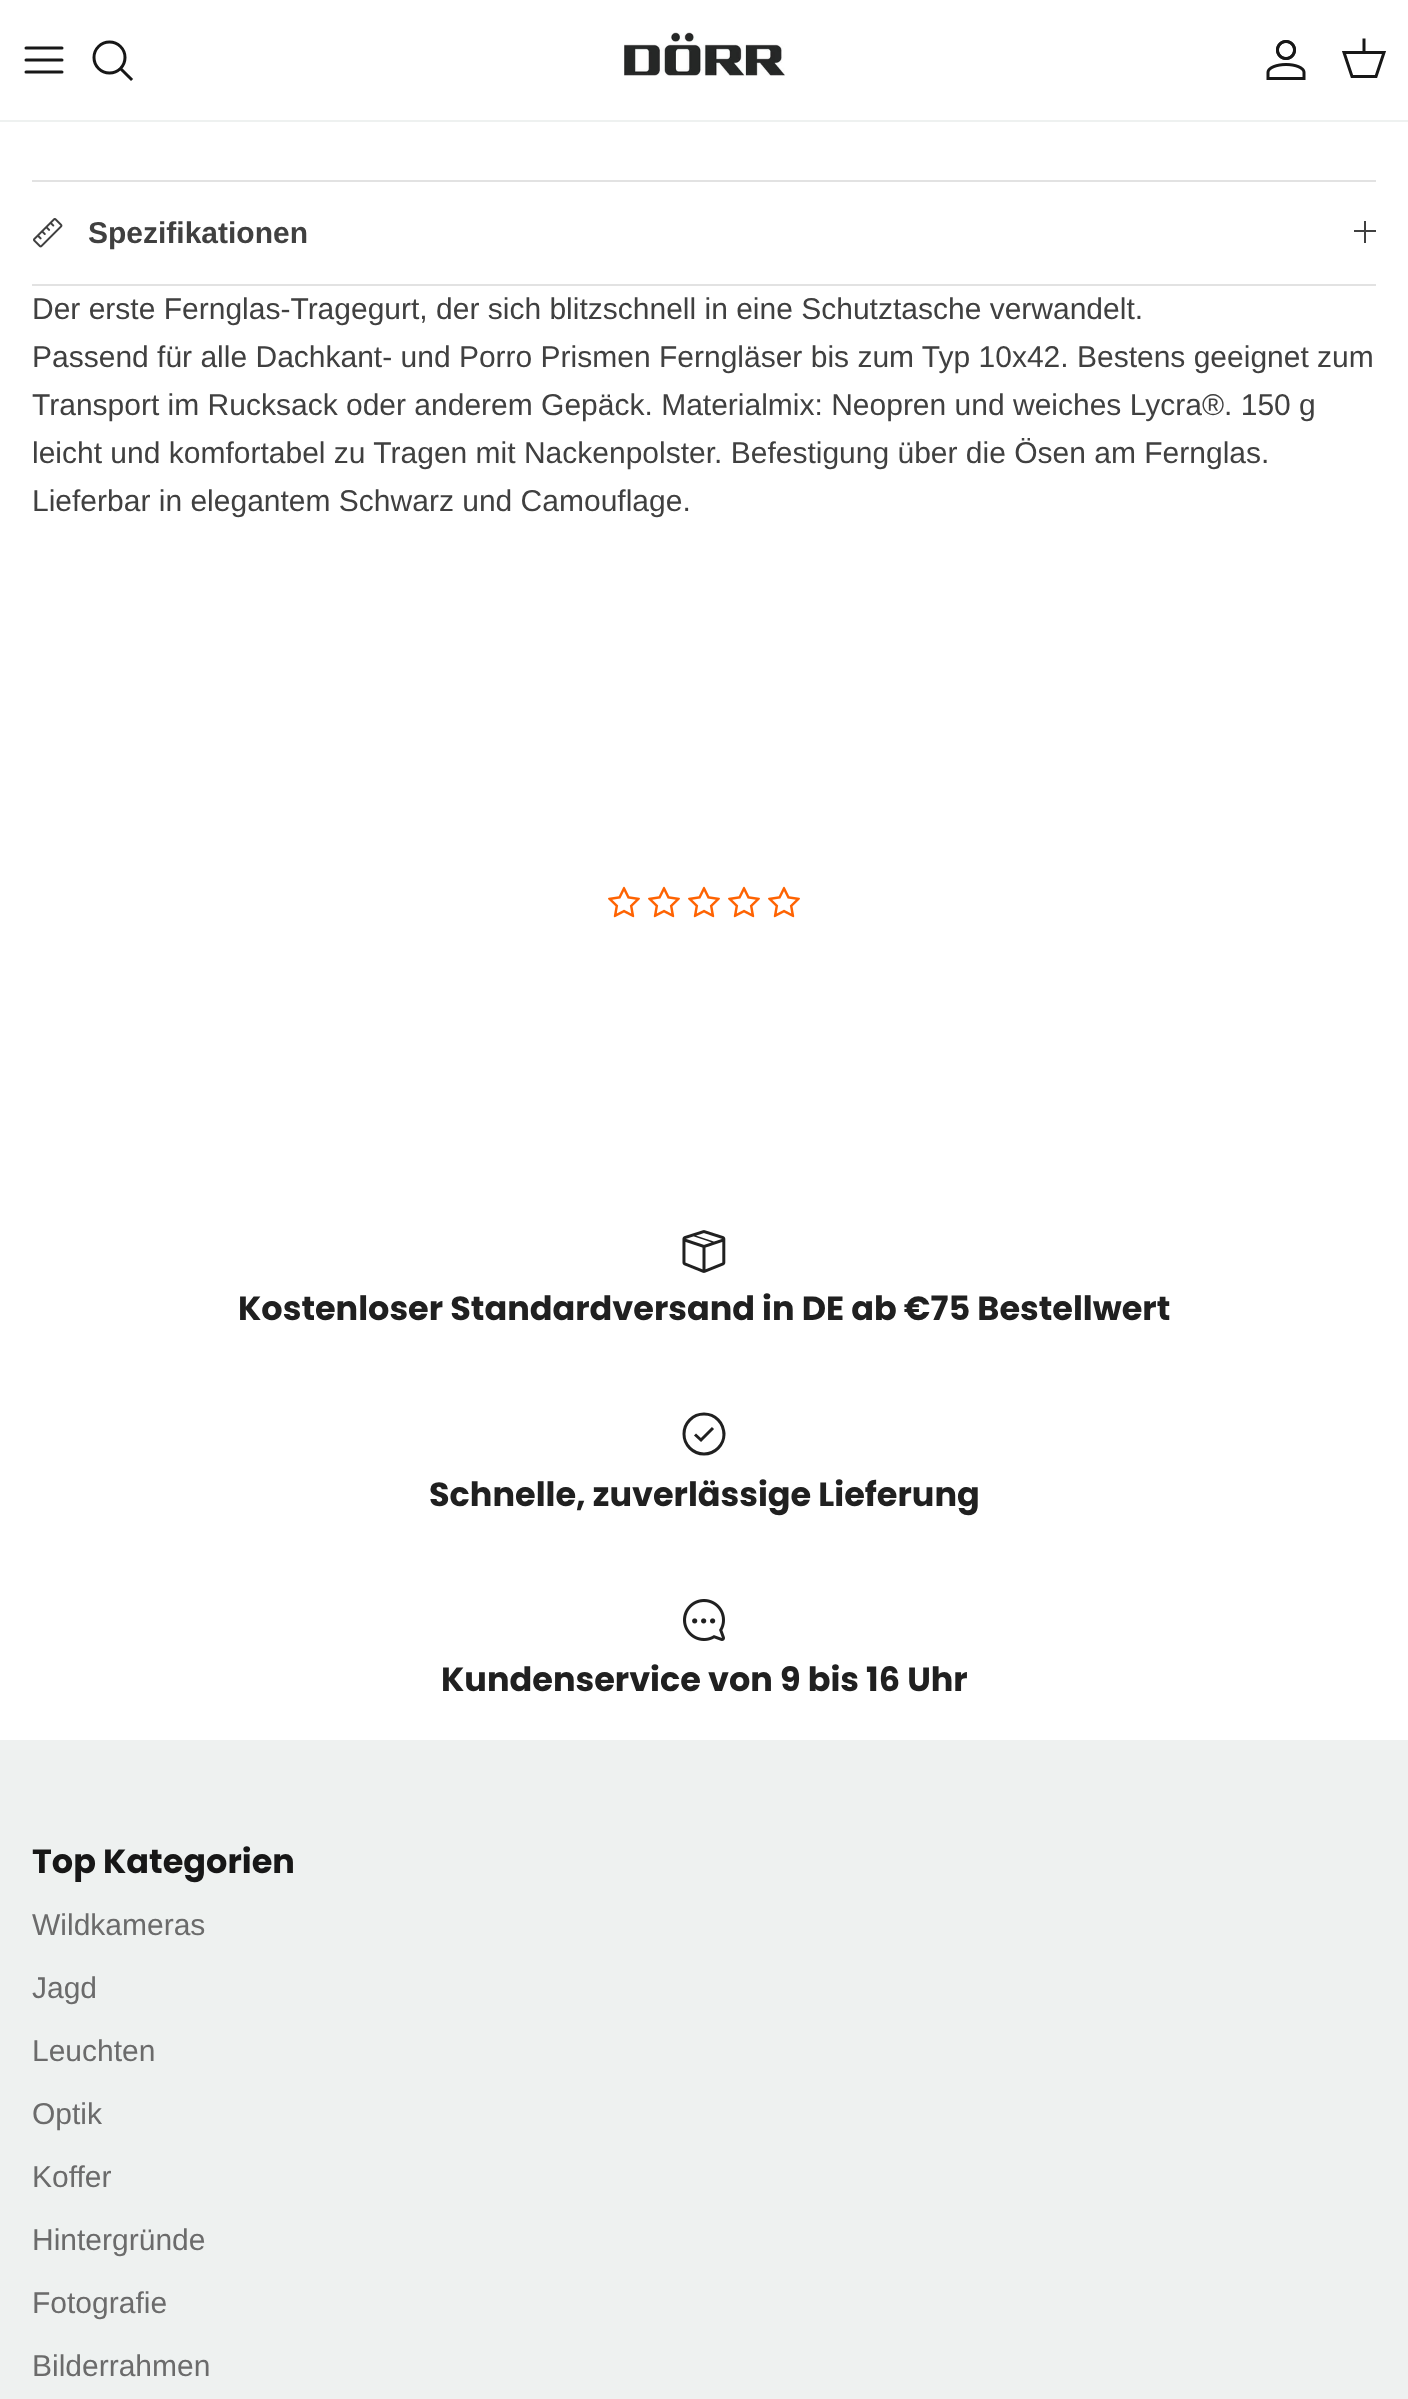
<!DOCTYPE html>
<meta charset="utf-8">
<style>body { margin: 0 } canvas { display: block }</style>
<canvas id="canvas" width="1408" height="2399"></canvas>
<script type="module">
  const canvas = document.getElementById("canvas");
  const ctx = canvas.getContext("2d");
  ctx.miterLimit = 4;
  ctx.fontKerning = "normal";
  async function loadImage(src) {
    const img = new Image();
    img.src = src;
    await img.decode();
    return img;
  }

  ctx.fillStyle = "#ffffff";
  ctx.fillRect(0, 0, 1408, 2399);
  ctx.fillStyle = "#eef1f0";
  ctx.fillRect(0, 120, 1408, 2);
  ctx.beginPath();
  ctx.moveTo(26, 60);
  ctx.lineTo(62, 60);
  ctx.moveTo(26, 48);
  ctx.lineTo(62, 48);
  ctx.moveTo(26, 72);
  ctx.lineTo(62, 72);
  ctx.strokeStyle = "#171717";
  ctx.lineWidth = 3;
  ctx.lineCap = "round";
  ctx.lineJoin = "round";
  ctx.stroke();
  ctx.beginPath();
  ctx.arc(109.5, 57.5, 15.5, 0, Math.PI * 2);
  ctx.stroke();
  ctx.beginPath();
  ctx.moveTo(122, 70);
  ctx.lineTo(131, 79);
  ctx.lineCap = "square";
  ctx.lineJoin = "miter";
  ctx.stroke();
  ctx.drawImage(await loadImage("img1.png"), 624, 32, 161, 44);
  ctx.drawImage(await loadImage("img2.png"), 1266, 40, 40, 40);
  ctx.beginPath();
  ctx.moveTo(1344, 52.5);
  ctx.lineTo(1384, 52.5);
  ctx.lineTo(1376, 76.5);
  ctx.lineTo(1352, 76.5);
  ctx.closePath();
  ctx.lineCap = "butt";
  ctx.stroke();
  ctx.beginPath();
  ctx.moveTo(1364, 52);
  ctx.lineTo(1364, 40);
  ctx.lineCap = "square";
  ctx.stroke();
  ctx.fillStyle = "#e2e2e2";
  ctx.fillRect(32, 180, 1344, 2);
  ctx.fillRect(32, 284, 1344, 2);
  ctx.drawImage(await loadImage("img3.png"), 33, 218, 30, 30);
  ctx.font = "bold 30px Liberation Sans";
  ctx.fillStyle = "#404040";
  ctx.fillText("Spezifikationen", 88, 243);
  ctx.fillRect(1364, 221, 2, 22);
  ctx.fillRect(1354, 230, 22, 2);
  ctx.font = "30px Liberation Sans";
  ctx.fillText("Der erste Fernglas-Tragegurt, der sich blitzschnell in eine Schutztasche verwandelt.", 32, 319);
  ctx.fillText("Passend für alle Dachkant- und Porro Prismen Ferngläser bis zum Typ 10x42. Bestens geeignet zum", 32, 367);
  ctx.fillText("Transport im Rucksack oder anderem Gepäck. Materialmix: Neopren und weiches Lycra®. 150 g", 32, 415);
  ctx.fillText("leicht und komfortabel zu Tragen mit Nackenpolster. Befestigung über die Ösen am Fernglas.", 32, 463);
  ctx.fillText("Lieferbar in elegantem Schwarz und Camouflage.", 32, 511);
  ctx.drawImage(await loadImage("img4.png"), 608, 886, 32, 32);
  ctx.drawImage(await loadImage("img4.png"), 648, 886, 32, 32);
  ctx.drawImage(await loadImage("img4.png"), 688, 886, 32, 32);
  ctx.drawImage(await loadImage("img4.png"), 728, 886, 32, 32);
  ctx.drawImage(await loadImage("img4.png"), 768, 886, 32, 32);
  ctx.drawImage(await loadImage("img5.png"), 682, 1230, 44, 43);
  ctx.font = "bold 33.5px Poppins";
  ctx.fillStyle = "#202020";
  ctx.fillText("Kostenloser Standardversand in DE ab €75 Bestellwert", 238, 1320);
  ctx.beginPath();
  ctx.arc(704, 1434, 20, 0, Math.PI * 2);
  ctx.strokeStyle = "#202020";
  ctx.stroke();
  ctx.beginPath();
  ctx.moveTo(713, 1428);
  ctx.lineTo(701, 1440);
  ctx.lineTo(695, 1434.5);
  ctx.lineCap = "butt";
  ctx.stroke();
  ctx.fillText("Schnelle, zuverlässige Lieferung", 429, 1506);
  ctx.drawImage(await loadImage("img6.png"), 683, 1599, 42, 42);
  ctx.fillText("Kundenservice von 9 bis 16 Uhr", 441, 1691);
  ctx.fillStyle = "#eef1f0";
  ctx.fillRect(0, 1740, 1408, 659);
  ctx.fillStyle = "#171717";
  ctx.fillText("Top Kategorien", 32, 1873);
  ctx.font = "30px Liberation Sans";
  ctx.fillStyle = "#6b6b6b";
  ctx.fillText("Wildkameras", 32, 1935);
  ctx.fillText("Jagd", 32, 1998);
  ctx.fillText("Leuchten", 32, 2061);
  ctx.fillText("Optik", 32, 2124);
  ctx.fillText("Koffer", 32, 2187);
  ctx.fillText("Hintergründe", 32, 2250);
  ctx.fillText("Fotografie", 32, 2313);
  ctx.fillText("Bilderrahmen", 32, 2376);
</script>
